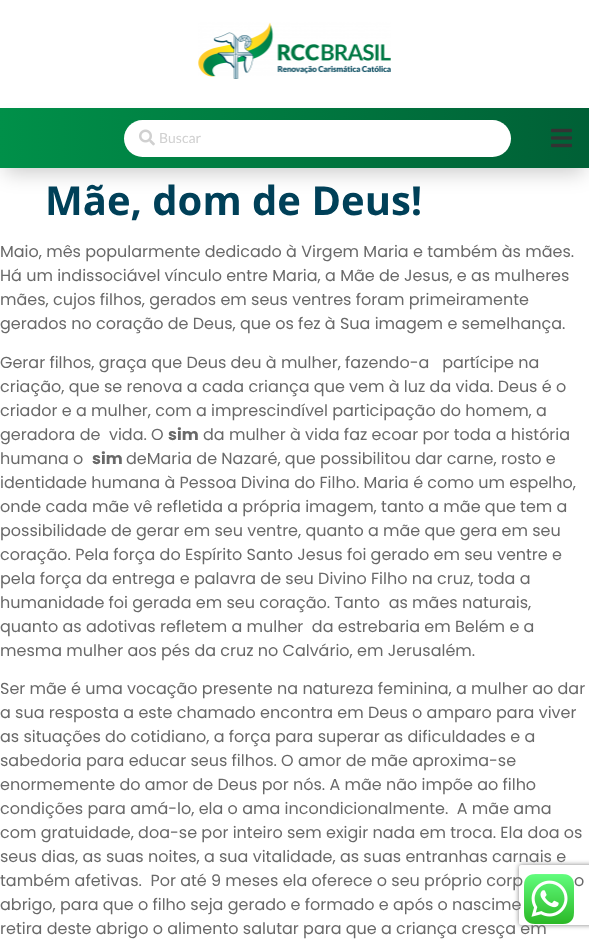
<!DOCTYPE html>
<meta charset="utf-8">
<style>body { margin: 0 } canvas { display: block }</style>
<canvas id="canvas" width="589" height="939"></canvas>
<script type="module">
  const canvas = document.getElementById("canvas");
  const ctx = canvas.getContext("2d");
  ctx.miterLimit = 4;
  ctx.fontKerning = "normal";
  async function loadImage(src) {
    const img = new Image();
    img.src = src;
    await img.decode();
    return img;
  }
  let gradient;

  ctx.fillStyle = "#ffffff";
  ctx.fillRect(0, 0, 589, 939);
  ctx.drawImage(await loadImage("img1.png"), 198, 22, 193, 57);
  ctx.fillStyle = "rgba(0, 0, 0, 0.2)";
  ctx.filter = "blur(10px)";
  ctx.beginPath();
  ctx.rect(5, 123, 579, 50);
  ctx.fill();
  ctx.filter = "none";
  gradient = ctx.createLinearGradient(589, 138, 0, 138);
  gradient.addColorStop(0, "#006036");
  gradient.addColorStop(1, "#009049");
  ctx.fillStyle = gradient;
  ctx.fillRect(0, 108, 589, 60);
  ctx.fillStyle = "#ffffff";
  ctx.beginPath();
  ctx.roundRect(124, 120, 387, 37, 18.5);
  ctx.fill();
  ctx.drawImage(await loadImage("img2.png"), 139, 129, 16, 17);
  ctx.font = "14px Lato";
  ctx.fillStyle = "#d0d0d0";
  ctx.fillText("Buscar", 159, 143);
  ctx.drawImage(await loadImage("img3.png"), 551, 128, 21, 20);
  ctx.font = "bold 40px Open Sans";
  ctx.fillStyle = "#004058";
  ctx.fillText("Mãe, dom de Deus!", 45, 215);
  ctx.font = "16px Poppins";
  ctx.fillStyle = "#696969";
  ctx.fillText("Maio, mês popularmente dedicado à Virgem Maria e também às mães.", 0, 257);
  ctx.fillText("Há um indissociável vínculo entre Maria, a Mãe de Jesus, e as mulheres", 0, 281);
  ctx.fillText("mães, cujos filhos, gerados em seus ventres foram primeiramente", 0, 305);
  ctx.fillText("gerados no coração de Deus, que os fez à Sua imagem e semelhança.", 0, 329);
  ctx.fillText("Gerar filhos, graça que Deus deu à mulher, fazendo-a   partícipe na", 0, 368);
  ctx.fillText("criação, que se renova a cada criança que vem à luz da vida. Deus é o", 0, 392);
  ctx.fillText("criador e a mulher, com a imprescindível participação do homem, a", 0, 416);
  ctx.fillText("geradora de  vida. O", 0, 440);
  ctx.font = "bold 16px Poppins";
  ctx.fillText("sim", 168, 440);
  ctx.font = "16px Poppins";
  ctx.fillText("da mulher à vida faz ecoar por toda a história", 203, 440);
  ctx.fillText("humana o", 0, 464);
  ctx.font = "bold 16px Poppins";
  ctx.fillText("sim", 92, 464);
  ctx.font = "16px Poppins";
  ctx.fillText("deMaria de Nazaré, que possibilitou dar carne, rosto e", 126, 464);
  ctx.fillText("identidade humana à Pessoa Divina do Filho. Maria é como um espelho,", 0, 488);
  ctx.fillText("onde cada mãe vê refletida a própria imagem, tanto a mãe que tem a", 0, 512);
  ctx.fillText("possibilidade de gerar em seu ventre, quanto a mãe que gera em seu", 0, 536);
  ctx.fillText("coração. Pela força do Espírito Santo Jesus foi gerado em seu ventre e", 0, 560);
  ctx.fillText("pela força da entrega e palavra de seu Divino Filho na cruz, toda a", 0, 584);
  ctx.fillText("humanidade foi gerada em seu coração. Tanto  as mães naturais,", 0, 608);
  ctx.fillText("quanto as adotivas refletem a mulher  da estrebaria em Belém e a", 0, 632);
  ctx.fillText("mesma mulher aos pés da cruz no Calvário, em Jerusalém.", 0, 656);
  ctx.fillText("Ser mãe é uma vocação presente na natureza feminina, a mulher ao dar", 0, 694);
  ctx.fillText("a sua resposta a este chamado encontra em Deus o amparo para viver", 0, 718);
  ctx.fillText("as situações do cotidiano, a força para superar as dificuldades e a", 0, 742);
  ctx.fillText("sabedoria para educar seus filhos. O amor de mãe aproxima-se", 0, 766);
  ctx.fillText("enormemente do amor de Deus por nós. A mãe não impõe ao filho", 0, 790);
  ctx.fillText("condições para amá-lo, ela o ama incondicionalmente.  A mãe ama", 0, 814);
  ctx.fillText("com gratuidade, doa-se por inteiro sem exigir nada em troca. Ela doa os", 0, 838);
  ctx.fillText("seus dias, as suas noites, a sua vitalidade, as suas entranhas carnais e", 0, 862);
  ctx.fillText("também afetivas.  Por até 9 meses ela oferece o seu próprio corp", 0, 886);
  ctx.fillText("o", 574, 886);
  ctx.fillText("abrigo, para que o filho seja gerado e formado e após o nascime", 0, 910);
  ctx.fillText("retira deste abrigo o alimento salutar para que a criança cresça em", 0, 934);
  ctx.save();
  ctx.beginPath();
  ctx.moveTo(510, 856);
  ctx.lineTo(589, 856);
  ctx.lineTo(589, 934);
  ctx.lineTo(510, 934);
  ctx.closePath();
  ctx.moveTo(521, 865);
  ctx.lineTo(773, 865);
  ctx.bezierCurveTo(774, 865, 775, 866, 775, 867);
  ctx.lineTo(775, 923);
  ctx.bezierCurveTo(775, 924, 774, 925, 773, 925);
  ctx.lineTo(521, 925);
  ctx.bezierCurveTo(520, 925, 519, 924, 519, 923);
  ctx.lineTo(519, 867);
  ctx.bezierCurveTo(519, 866, 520, 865, 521, 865);
  ctx.closePath();
  ctx.clip("evenodd");
  ctx.fillStyle = "#808080";
  ctx.filter = "blur(2.5px)";
  ctx.beginPath();
  ctx.roundRect(519, 865, 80, 60, 2);
  ctx.fill();
  ctx.filter = "none";
  ctx.restore();
  ctx.drawImage(await loadImage("img4.png"), 524, 874, 50, 50);
</script>
